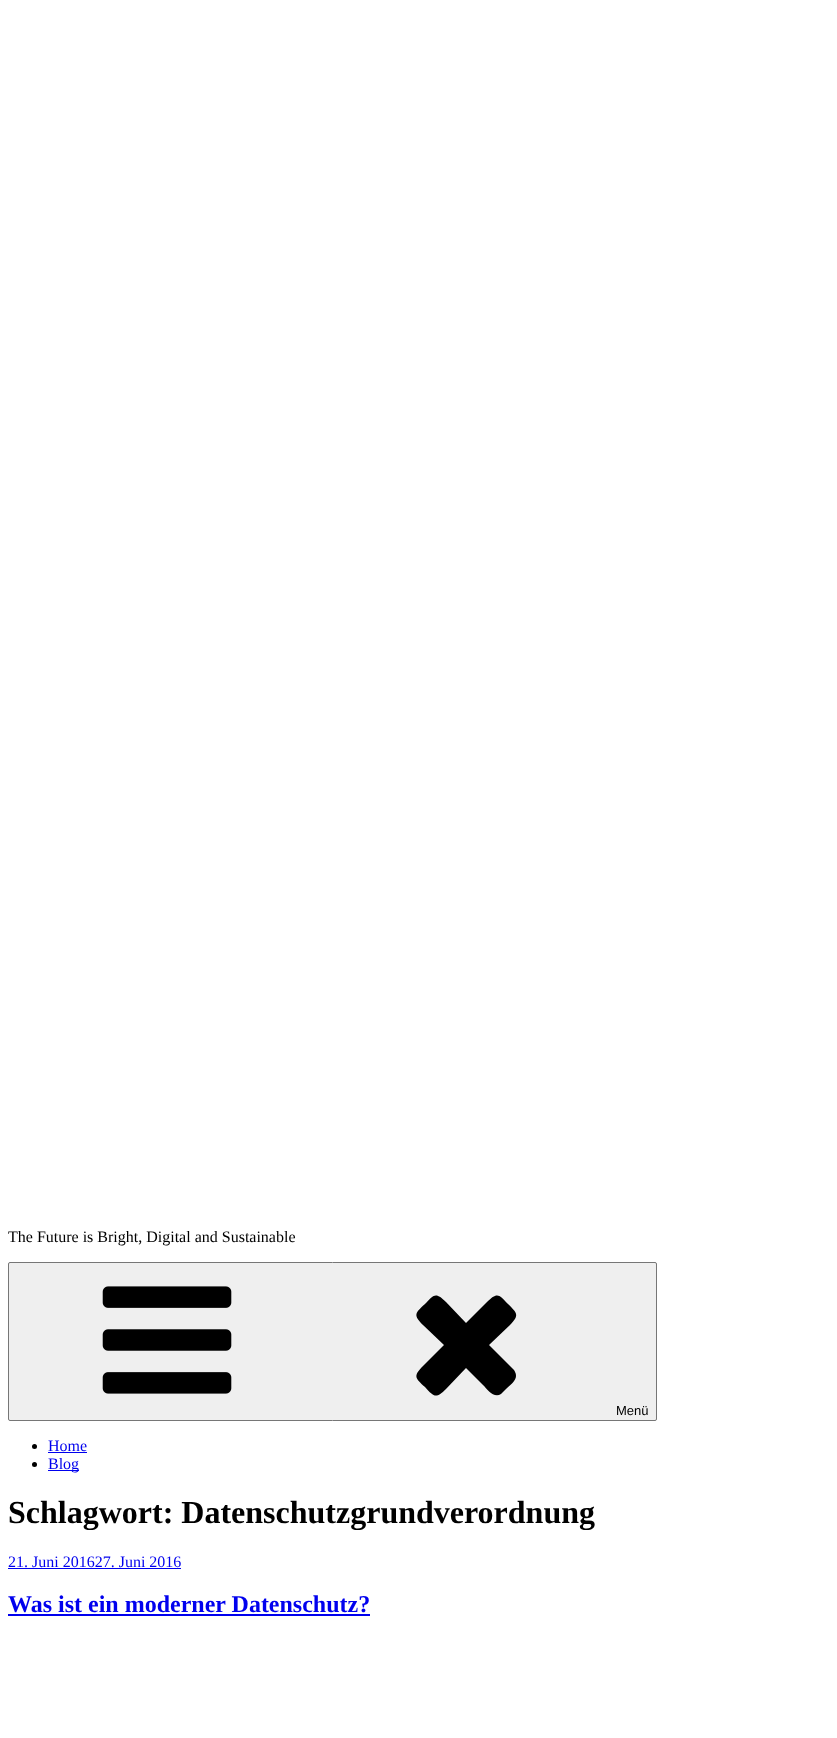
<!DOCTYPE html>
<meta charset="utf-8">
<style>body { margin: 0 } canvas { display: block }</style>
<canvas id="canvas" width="837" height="1738"></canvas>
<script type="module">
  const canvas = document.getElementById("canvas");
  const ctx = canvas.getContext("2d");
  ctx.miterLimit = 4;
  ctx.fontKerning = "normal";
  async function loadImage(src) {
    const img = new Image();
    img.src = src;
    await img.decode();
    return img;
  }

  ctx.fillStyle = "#ffffff";
  ctx.fillRect(0, 0, 837, 1738);
  ctx.font = "16px Liberation Serif";
  ctx.fillStyle = "#000000";
  ctx.fillText("The Future is Bright, Digital and Sustainable", 8, 1242);
  ctx.fillStyle = "#efefef";
  ctx.beginPath();
  ctx.roundRect(8.5, 1262.5, 648, 158, 1.5);
  ctx.fill();
  ctx.strokeStyle = "#767676";
  ctx.stroke();
  ctx.drawImage(await loadImage("img1.png"), 102, 1286, 130, 108);
  ctx.fillStyle = "#000000";
  ctx.beginPath();
  ctx.moveTo(516, 1376);
  ctx.bezierCurveTo(516, 1381, 510, 1385, 506, 1389);
  ctx.lineTo(501, 1394);
  ctx.bezierCurveTo(494, 1399, 487, 1389, 483, 1385);
  ctx.lineTo(466, 1368);
  ctx.lineTo(446, 1389);
  ctx.bezierCurveTo(436, 1399, 434, 1397, 425, 1387);
  ctx.bezierCurveTo(415, 1378, 413, 1376, 423, 1366);
  ctx.lineTo(444, 1345);
  ctx.lineTo(423, 1325);
  ctx.bezierCurveTo(413, 1315, 415, 1313, 425, 1304);
  ctx.bezierCurveTo(434, 1294, 436, 1292, 446, 1302);
  ctx.lineTo(466, 1323);
  ctx.lineTo(487, 1302);
  ctx.bezierCurveTo(497, 1292, 499, 1294, 508, 1304);
  ctx.bezierCurveTo(517, 1313, 520, 1315, 510, 1325);
  ctx.lineTo(489, 1345);
  ctx.lineTo(514, 1370);
  ctx.bezierCurveTo(515, 1372, 516, 1373, 516, 1376);
  ctx.closePath();
  ctx.fill();
  ctx.font = "13px Liberation Sans";
  ctx.fillText("Menü", 616, 1415);
  ctx.beginPath();
  ctx.arc(34.5, 1446.5, 2.5, 0, Math.PI * 2);
  ctx.fill();
  ctx.font = "16px Liberation Serif";
  ctx.fillStyle = "#0000ee";
  ctx.fillText("Home", 48, 1451);
  ctx.fillRect(48, 1452, 39, 1);
  ctx.fillStyle = "#000000";
  ctx.beginPath();
  ctx.arc(34.5, 1464.5, 2.5, 0, Math.PI * 2);
  ctx.fill();
  ctx.fillStyle = "#0000ee";
  ctx.fillRect(48, 1470, 31, 1);
  ctx.fillText("Blog", 48, 1469);
  ctx.font = "bold 32px Liberation Serif";
  ctx.fillStyle = "#000000";
  ctx.fillText("Schlagwort: Datenschutzgrundverordnung", 8, 1523);
  ctx.font = "16px Liberation Serif";
  ctx.fillStyle = "#0000ee";
  ctx.fillText("21. Juni 201627. Juni 2016", 8, 1567);
  ctx.fillRect(8, 1568, 173, 1);
  ctx.font = "bold 24px Liberation Serif";
  ctx.fillText("Was ist ein moderner Datenschutz?", 8, 1612);
  ctx.fillRect(8, 1614, 362, 2);
</script>
